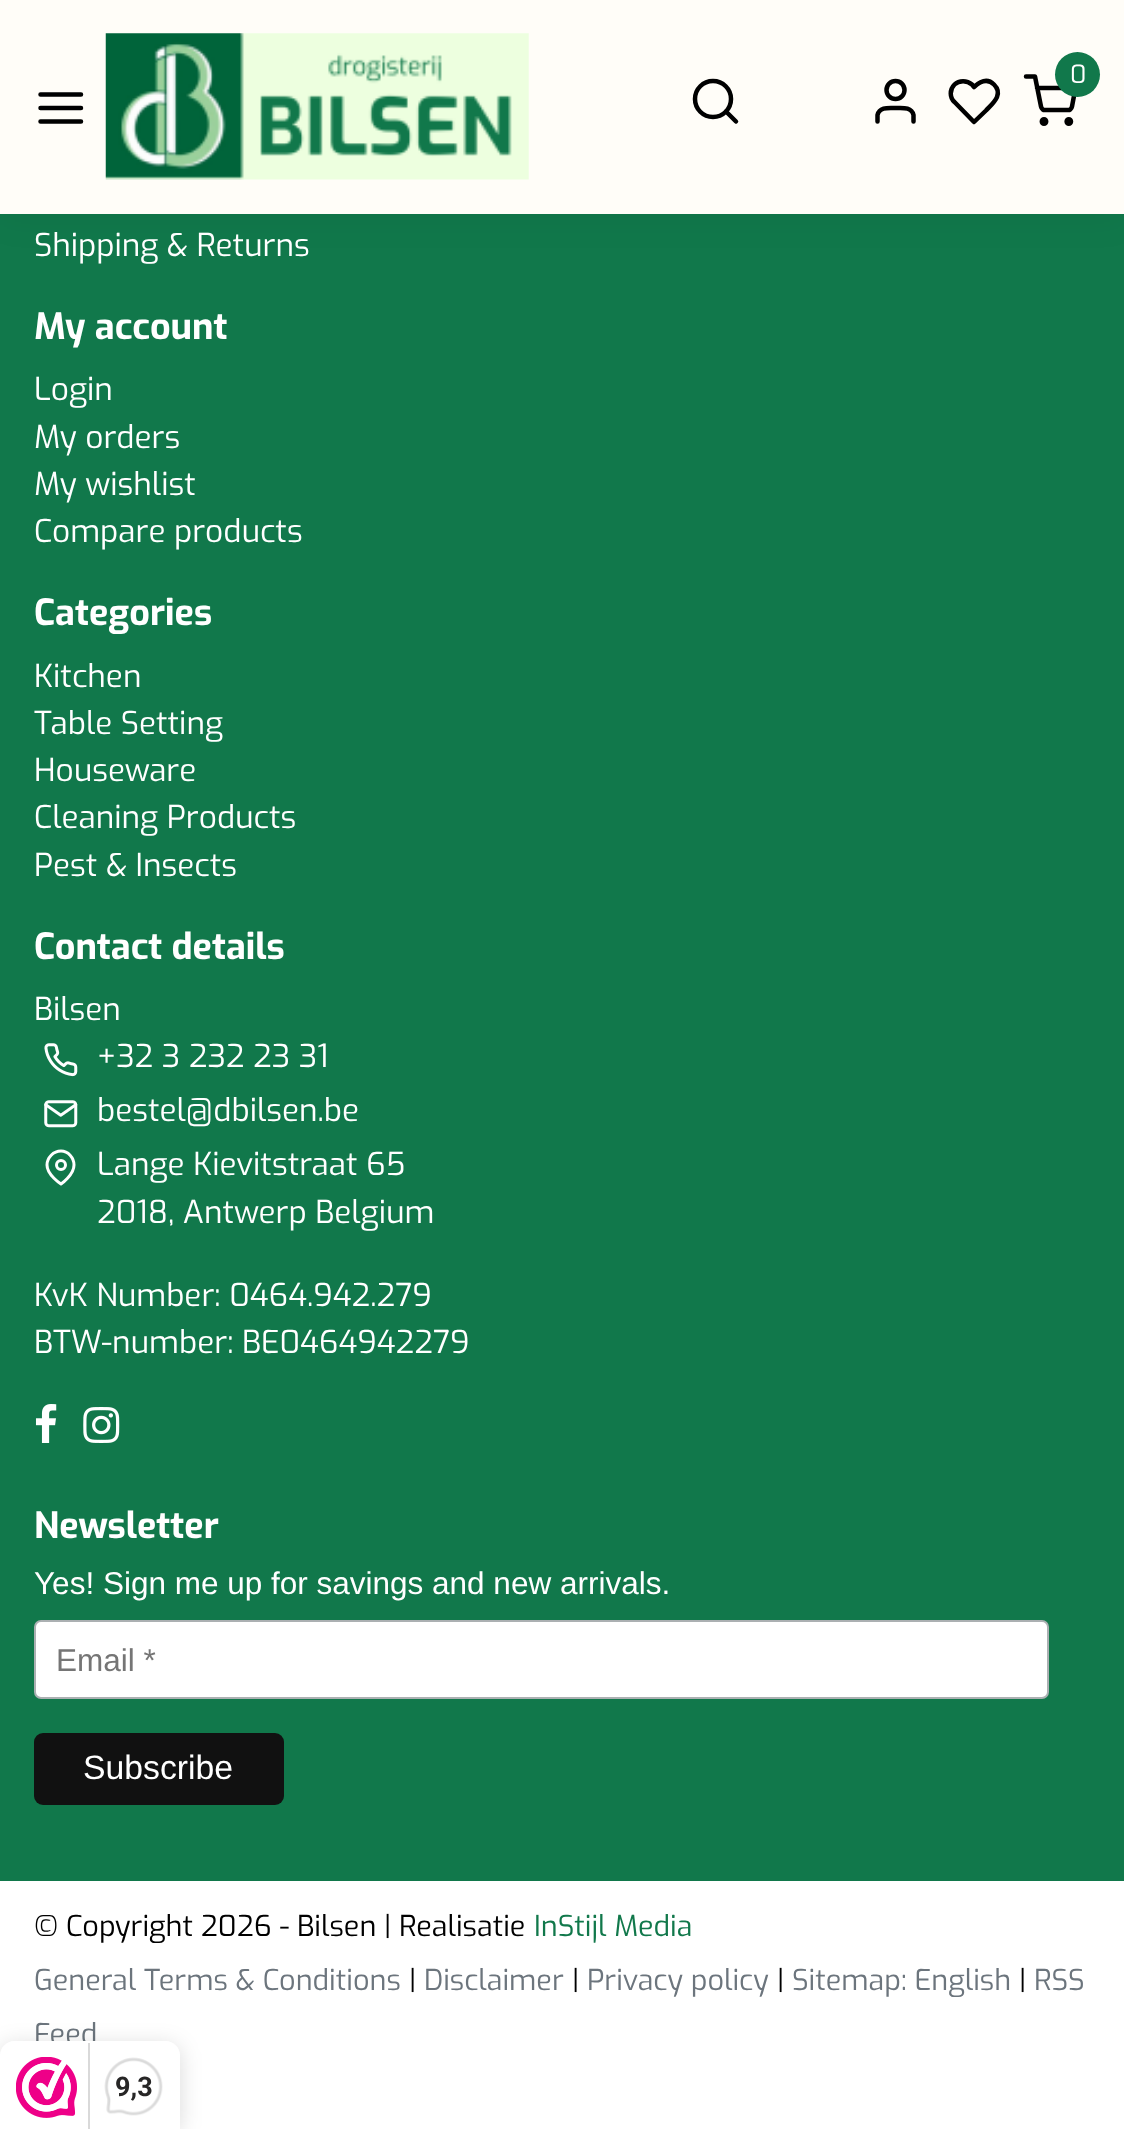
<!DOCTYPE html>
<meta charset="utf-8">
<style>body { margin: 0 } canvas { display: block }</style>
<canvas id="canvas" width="1124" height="2129"></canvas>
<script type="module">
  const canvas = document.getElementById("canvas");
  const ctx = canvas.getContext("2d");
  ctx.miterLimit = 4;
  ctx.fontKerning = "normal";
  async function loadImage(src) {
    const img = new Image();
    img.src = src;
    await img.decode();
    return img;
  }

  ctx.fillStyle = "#ffffff";
  ctx.fillRect(0, 0, 1124, 2129);
  ctx.fillStyle = "#11784b";
  ctx.fillRect(0, 214, 1124, 1667);
  ctx.fillStyle = "rgba(0, 0, 0, 0.05)";
  ctx.filter = "blur(18px)";
  ctx.beginPath();
  ctx.rect(0, 5, 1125, 213);
  ctx.fill();
  ctx.filter = "none";
  ctx.fillStyle = "#fffdf8";
  ctx.fillRect(0, 0, 1124, 214);
  ctx.beginPath();
  ctx.moveTo(40.5, 108);
  ctx.lineTo(81, 108);
  ctx.moveTo(40.5, 94.5);
  ctx.lineTo(81, 94.5);
  ctx.moveTo(40.5, 121.5);
  ctx.lineTo(81, 121.5);
  ctx.strokeStyle = "#000000";
  ctx.lineWidth = 4.5;
  ctx.lineCap = "round";
  ctx.lineJoin = "round";
  ctx.stroke();
  ctx.drawImage(await loadImage("img1.png"), 105, 33, 424, 147);
  ctx.beginPath();
  ctx.moveTo(1026, 76.5);
  ctx.lineTo(1035, 76.5);
  ctx.lineTo(1041, 106.5);
  ctx.bezierCurveTo(1041.5, 109, 1043.5, 110.5, 1045.5, 110);
  ctx.lineTo(1067.5, 110);
  ctx.bezierCurveTo(1069.5, 110.5, 1071.5, 109, 1072, 106.5);
  ctx.lineTo(1075.5, 88);
  ctx.lineTo(1037, 88);
  ctx.stroke();
  ctx.fillStyle = "#11784b";
  ctx.beginPath();
  ctx.arc(1077.5, 74.5, 22.5, 0, Math.PI * 2);
  ctx.fill();
  ctx.font = "25px Exo";
  ctx.fillStyle = "#ffffff";
  ctx.fillText("0", 1070, 83);
  ctx.beginPath();
  ctx.arc(1044, 121.5, 2.2, 0, Math.PI * 2);
  ctx.stroke();
  ctx.beginPath();
  ctx.arc(1068.8, 121.5, 2.2, 0, Math.PI * 2);
  ctx.stroke();
  ctx.beginPath();
  ctx.arc(713, 99, 18, 0, Math.PI * 2);
  ctx.stroke();
  ctx.beginPath();
  ctx.moveTo(736, 121.5);
  ctx.lineTo(726, 111.5);
  ctx.stroke();
  ctx.beginPath();
  ctx.moveTo(913.5, 121.5);
  ctx.lineTo(913.5, 115);
  ctx.bezierCurveTo(911.5, 106.5, 902, 108, 895.5, 108);
  ctx.bezierCurveTo(889, 108, 879.5, 106.5, 877.5, 115);
  ctx.lineTo(877.5, 121.5);
  ctx.stroke();
  ctx.beginPath();
  ctx.arc(895.5, 90, 9, 0, Math.PI * 2);
  ctx.stroke();
  ctx.beginPath();
  ctx.moveTo(994, 84.5);
  ctx.bezierCurveTo(987.5, 78, 980, 81.5, 974, 87);
  ctx.lineTo(972, 84.5);
  ctx.bezierCurveTo(967, 80, 959, 80, 954.5, 84.5);
  ctx.bezierCurveTo(949.5, 89.5, 949.5, 97.5, 954.5, 102);
  ctx.lineTo(974, 122);
  ctx.lineTo(986, 110.5);
  ctx.bezierCurveTo(992.5, 103.5, 1004, 94.5, 994, 84.5);
  ctx.closePath();
  ctx.stroke();
  ctx.font = "31.5px Exo";
  ctx.fillText("Shipping & Returns", 34, 256);
  ctx.font = "bold 36px Exo";
  ctx.fillText("My account", 34, 339);
  ctx.font = "31.5px Exo";
  ctx.fillText("Login", 34, 400);
  ctx.fillText("My orders", 34, 448);
  ctx.fillText("My wishlist", 34, 495);
  ctx.fillText("Compare products", 34, 542);
  ctx.font = "bold 36px Exo";
  ctx.fillText("Categories", 34, 625);
  ctx.font = "31.5px Exo";
  ctx.fillText("Kitchen", 34, 687);
  ctx.fillText("Table Setting", 34, 734);
  ctx.fillText("Houseware", 34, 781);
  ctx.fillText("Cleaning Products", 34, 828);
  ctx.fillText("Pest & Insects", 34, 876);
  ctx.font = "bold 36px Exo";
  ctx.fillText("Contact details", 34, 959);
  ctx.font = "31.5px Exo";
  ctx.fillText("Bilsen", 34, 1020);
  ctx.drawImage(await loadImage("img2.png"), 44, 1043, 34, 34);
  ctx.fillText("+32 3 232 23 31", 97, 1067);
  ctx.drawImage(await loadImage("img3.png"), 44, 1100, 34, 28);
  ctx.fillText("bestel@dbilsen.be", 97, 1121);
  ctx.beginPath();
  ctx.moveTo(74, 1165);
  ctx.bezierCurveTo(74, 1175, 61, 1184, 61, 1184);
  ctx.bezierCurveTo(61, 1184, 47, 1175, 47, 1165);
  ctx.bezierCurveTo(47, 1157.5, 53.5, 1151, 61, 1151);
  ctx.bezierCurveTo(68, 1151, 74, 1157.5, 74, 1165);
  ctx.closePath();
  ctx.strokeStyle = "#ffffff";
  ctx.lineWidth = 3;
  ctx.stroke();
  ctx.beginPath();
  ctx.arc(61, 1165, 4.5, 0, Math.PI * 2);
  ctx.stroke();
  ctx.fillText("Lange Kievitstraat 65", 97, 1175);
  ctx.fillText("2018, Antwerp Belgium", 97, 1223);
  ctx.fillText("KvK Number: 0464.942.279", 34, 1306);
  ctx.fillText("BTW-number: BE0464942279", 34, 1353);
  ctx.drawImage(await loadImage("img4.png"), 35, 1404, 22, 39);
  ctx.drawImage(await loadImage("img5.png"), 83, 1407, 37, 36);
  ctx.font = "bold 36px Exo";
  ctx.fillText("Newsletter", 34, 1538);
  ctx.font = "31.5px Liberation Sans";
  ctx.fillText("Yes! Sign me up for savings and new arrivals.", 34, 1594);
  ctx.beginPath();
  ctx.roundRect(35, 1621, 1013, 77, 6);
  ctx.fill();
  ctx.strokeStyle = "#abb0b2";
  ctx.lineWidth = 2;
  ctx.lineJoin = "miter";
  ctx.stroke();
  ctx.fillStyle = "#757575";
  ctx.fillText("Email *", 56, 1671);
  ctx.fillStyle = "#111111";
  ctx.beginPath();
  ctx.roundRect(34, 1733, 250, 72, 9);
  ctx.fill();
  ctx.font = "33.75px Liberation Sans";
  ctx.fillStyle = "#ffffff";
  ctx.fillText("Subscribe", 83, 1779);
  ctx.font = "28.75px Exo";
  ctx.fillStyle = "#000000";
  ctx.fillText("© Copyright 2026 - Bilsen | Realisatie", 34, 1936);
  ctx.fillStyle = "#11784b";
  ctx.fillText("InStijl Media", 534, 1936);
  ctx.fillStyle = "#6c757d";
  ctx.fillText("General Terms & Conditions", 34, 1990);
  ctx.fillStyle = "#000000";
  ctx.fillText("|", 409, 1990);
  ctx.fillStyle = "#6c757d";
  ctx.fillText("Disclaimer", 424, 1990);
  ctx.fillStyle = "#000000";
  ctx.fillText("|", 572, 1990);
  ctx.fillStyle = "#6c757d";
  ctx.fillText("Privacy policy", 587, 1990);
  ctx.fillStyle = "#000000";
  ctx.fillText("|", 777, 1990);
  ctx.fillStyle = "#6c757d";
  ctx.fillText("Sitemap: English", 792, 1990);
  ctx.fillStyle = "#000000";
  ctx.fillText("|", 1019, 1990);
  ctx.fillStyle = "#6c757d";
  ctx.fillText("RSS", 1034, 1990);
  ctx.fillText("Feed", 34, 2044);
  ctx.fillStyle = "rgba(0, 0, 0, 0.15)";
  ctx.filter = "blur(11px)";
  ctx.beginPath();
  ctx.roundRect(0, 2045, 180, 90, 14);
  ctx.fill();
  ctx.filter = "none";
  ctx.fillStyle = "#ffffff";
  ctx.beginPath();
  ctx.moveTo(14, 2041);
  ctx.lineTo(166, 2041);
  ctx.bezierCurveTo(173.5, 2041, 180, 2047.5, 180, 2055);
  ctx.lineTo(180, 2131);
  ctx.lineTo(0, 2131);
  ctx.lineTo(0, 2055);
  ctx.bezierCurveTo(0, 2047.5, 6.5, 2041, 14, 2041);
  ctx.closePath();
  ctx.fill();
  ctx.drawImage(await loadImage("img6.png"), 16, 2057, 61, 61);
  ctx.fillStyle = "#d9d9d9";
  ctx.fillRect(88, 2043, 2, 86);
  ctx.drawImage(await loadImage("img7.png"), 104, 2057, 59, 59);
  ctx.font = "bold 27px Roboto";
  ctx.fillStyle = "#272626";
  ctx.fillText("9,3", 115, 2096);
</script>
